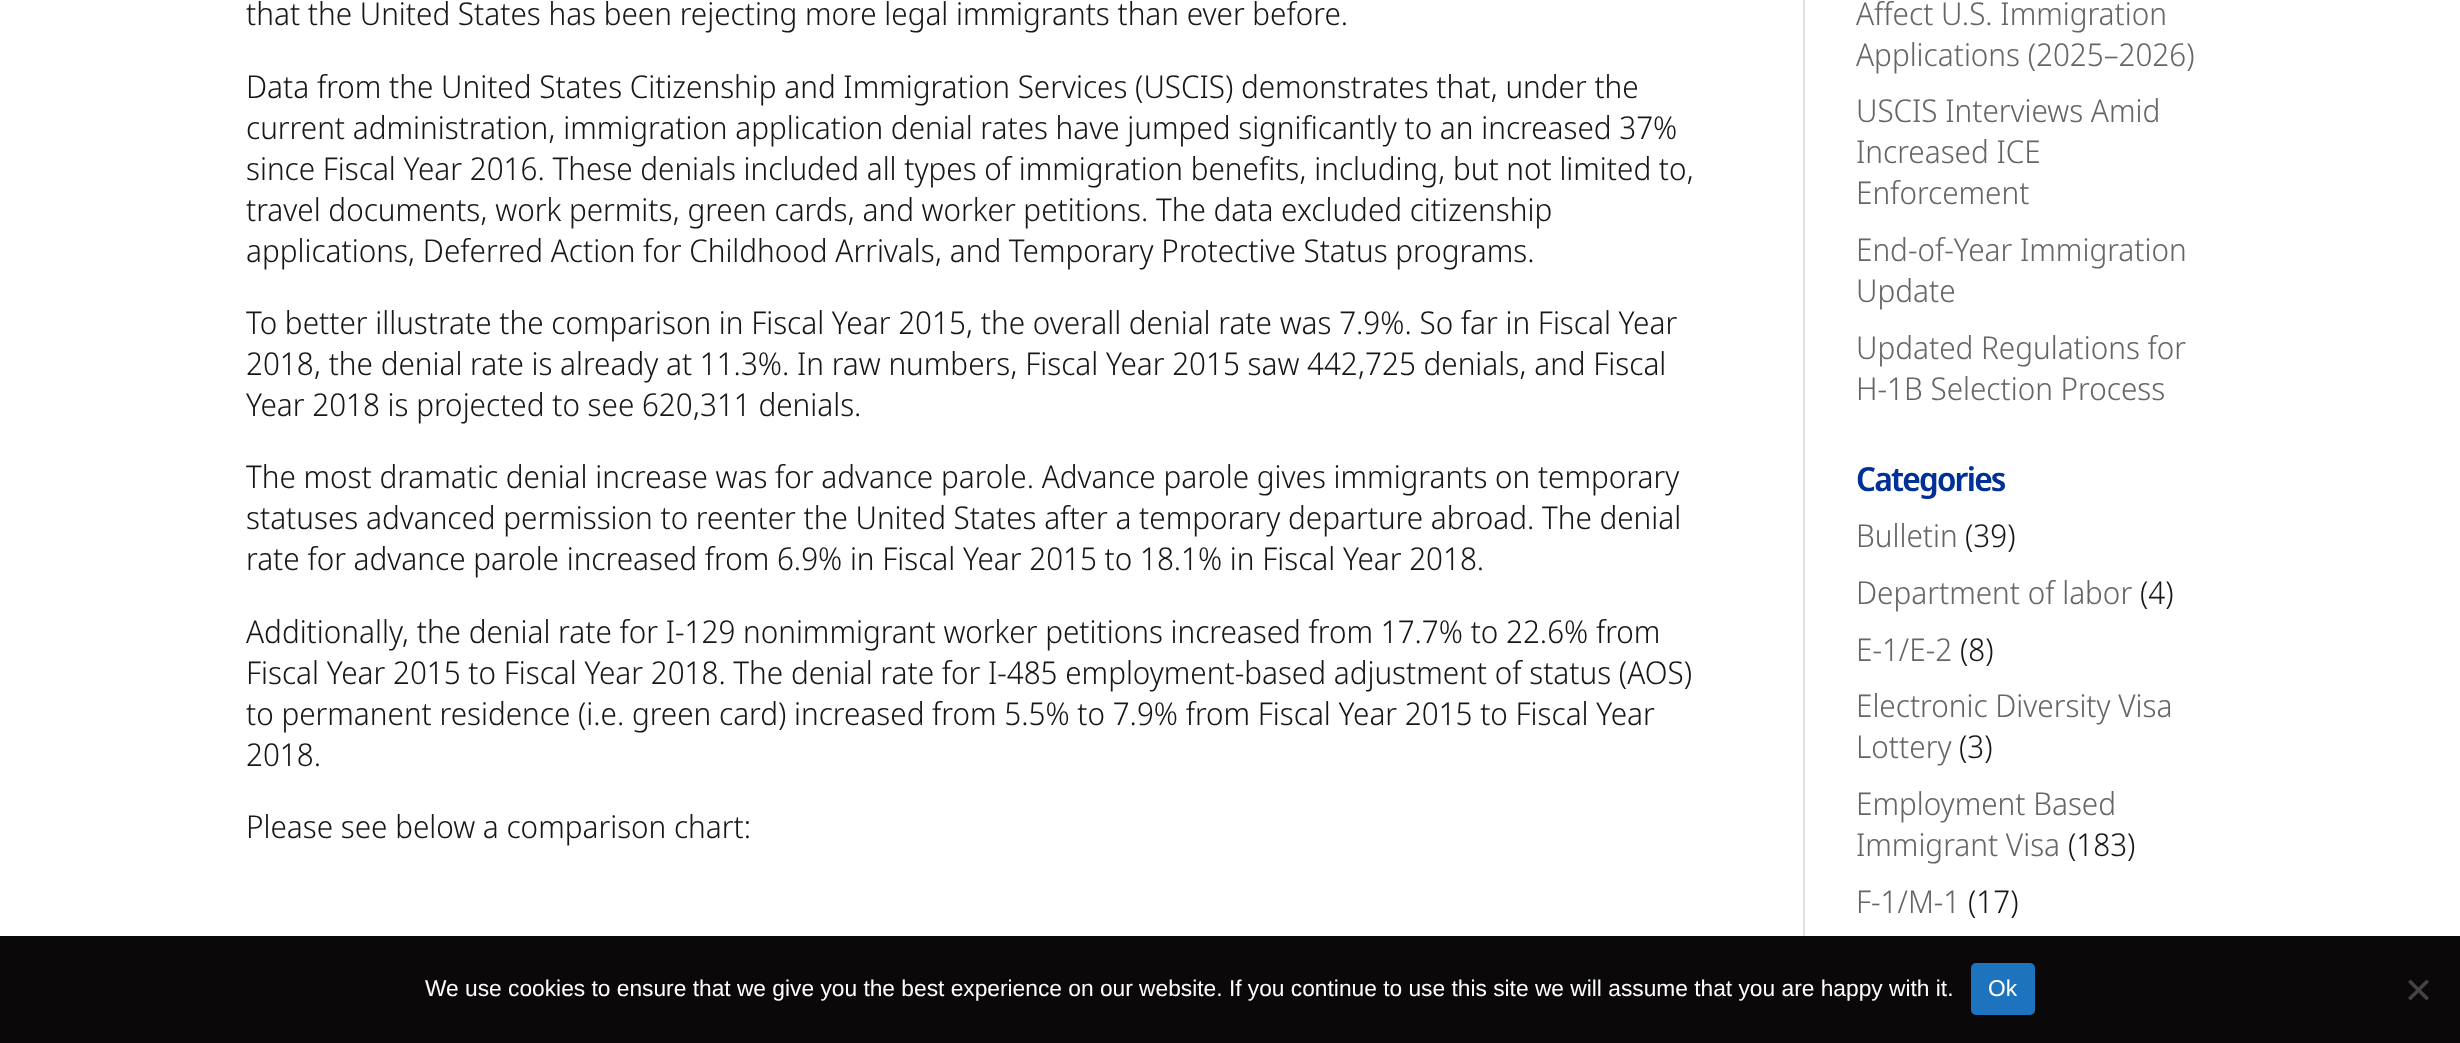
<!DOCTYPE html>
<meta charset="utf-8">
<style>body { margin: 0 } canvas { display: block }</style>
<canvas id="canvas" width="2460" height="1043"></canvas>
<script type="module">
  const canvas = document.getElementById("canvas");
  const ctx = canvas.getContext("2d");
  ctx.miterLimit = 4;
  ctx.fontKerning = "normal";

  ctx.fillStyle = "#ffffff";
  ctx.fillRect(0, 0, 2460, 1043);
  ctx.font = "300 31.5px Noto Sans Display";
  ctx.fillStyle = "#171717";
  ctx.fillText("that the United States has been rejecting more legal immigrants than ever before.", 246, 25);
  ctx.fillText("Data from the United States Citizenship and Immigration Services (USCIS) demonstrates that, under the", 246, 98);
  ctx.fillText("current administration, immigration application denial rates have jumped significantly to an increased 37%", 246, 139);
  ctx.fillText("since Fiscal Year 2016. These denials included all types of immigration benefits, including, but not limited to,", 246, 180);
  ctx.fillText("travel documents, work permits, green cards, and worker petitions. The data excluded citizenship", 246, 221);
  ctx.fillText("applications, Deferred Action for Childhood Arrivals, and Temporary Protective Status programs.", 246, 262);
  ctx.fillText("To better illustrate the comparison in Fiscal Year 2015, the overall denial rate was 7.9%. So far in Fiscal Year", 246, 334);
  ctx.fillText("2018, the denial rate is already at 11.3%. In raw numbers, Fiscal Year 2015 saw 442,725 denials, and Fiscal", 246, 375);
  ctx.fillText("Year 2018 is projected to see 620,311 denials.", 246, 416);
  ctx.fillText("The most dramatic denial increase was for advance parole. Advance parole gives immigrants on temporary", 246, 488);
  ctx.fillText("statuses advanced permission to reenter the United States after a temporary departure abroad. The denial", 246, 529);
  ctx.fillText("rate for advance parole increased from 6.9% in Fiscal Year 2015 to 18.1% in Fiscal Year 2018.", 246, 570);
  ctx.fillText("Additionally, the denial rate for I-129 nonimmigrant worker petitions increased from 17.7% to 22.6% from", 246, 643);
  ctx.fillText("Fiscal Year 2015 to Fiscal Year 2018. The denial rate for I-485 employment-based adjustment of status (AOS)", 246, 684);
  ctx.fillText("to permanent residence (i.e. green card) increased from 5.5% to 7.9% from Fiscal Year 2015 to Fiscal Year", 246, 725);
  ctx.fillText("2018.", 246, 766);
  ctx.fillText("Please see below a comparison chart:", 246, 838);
  ctx.fillStyle = "#666666";
  ctx.fillText("Affect U.S. Immigration", 1856, 25);
  ctx.fillText("Applications (2025–2026)", 1856, 66);
  ctx.fillText("USCIS Interviews Amid", 1856, 122);
  ctx.fillText("Increased ICE", 1856, 163);
  ctx.fillText("Enforcement", 1856, 204);
  ctx.fillText("End-of-Year Immigration", 1856, 261);
  ctx.fillText("Update", 1856, 302);
  ctx.fillText("Updated Regulations for", 1856, 359);
  ctx.fillText("H-1B Selection Process", 1856, 400);
  ctx.letterSpacing = "-1.75px";
  ctx.font = "600 33.25px Noto Sans Display";
  ctx.fillStyle = "#013096";
  ctx.fillText("Categories", 1856, 491);
  ctx.letterSpacing = "0px";
  ctx.font = "300 31.5px Noto Sans Display";
  ctx.fillStyle = "#666666";
  ctx.fillText("Bulletin", 1856, 547);
  ctx.fillStyle = "#171717";
  ctx.fillText("(39)", 1965, 547);
  ctx.fillStyle = "#666666";
  ctx.fillText("Department of labor", 1856, 604);
  ctx.fillStyle = "#171717";
  ctx.fillText("(4)", 2140, 604);
  ctx.fillStyle = "#666666";
  ctx.fillText("E-1/E-2", 1856, 661);
  ctx.fillStyle = "#171717";
  ctx.fillText("(8)", 1960, 661);
  ctx.fillStyle = "#666666";
  ctx.fillText("Electronic Diversity Visa", 1856, 717);
  ctx.fillText("Lottery", 1856, 758);
  ctx.fillStyle = "#171717";
  ctx.fillText("(3)", 1959, 758);
  ctx.fillStyle = "#666666";
  ctx.fillText("Employment Based", 1856, 815);
  ctx.fillText("Immigrant Visa", 1856, 856);
  ctx.fillStyle = "#171717";
  ctx.fillText("(183)", 2068, 856);
  ctx.fillStyle = "#666666";
  ctx.fillText("F-1/M-1", 1856, 913);
  ctx.fillStyle = "#171717";
  ctx.fillText("(17)", 1968, 913);
  ctx.fillStyle = "#e2e2e2";
  ctx.fillRect(1803, 0, 2, 936);
  ctx.fillStyle = "#0a0808";
  ctx.fillRect(0, 936, 2460, 107);
  ctx.font = "22.75px Liberation Sans";
  ctx.fillStyle = "#ffffff";
  ctx.fillText("We use cookies to ensure that we give you the best experience on our website. If you continue to use this site we will assume that you are happy with it.", 425, 996);
  ctx.fillStyle = "#1e73be";
  ctx.beginPath();
  ctx.roundRect(1971, 963, 64, 52, 5);
  ctx.fill();
  ctx.fillStyle = "#ffffff";
  ctx.fillText("Ok", 1988, 996);
  ctx.fillStyle = "#454444";
  ctx.beginPath();
  ctx.moveTo(2426.5, 979.5);
  ctx.lineTo(2429, 982);
  ctx.lineTo(2410.5, 1000.5);
  ctx.lineTo(2408, 998);
  ctx.closePath();
  ctx.fill();
  ctx.beginPath();
  ctx.moveTo(2408, 982);
  ctx.lineTo(2410.5, 979.5);
  ctx.lineTo(2429, 998);
  ctx.lineTo(2426.5, 1000.5);
  ctx.closePath();
  ctx.fill();
</script>
